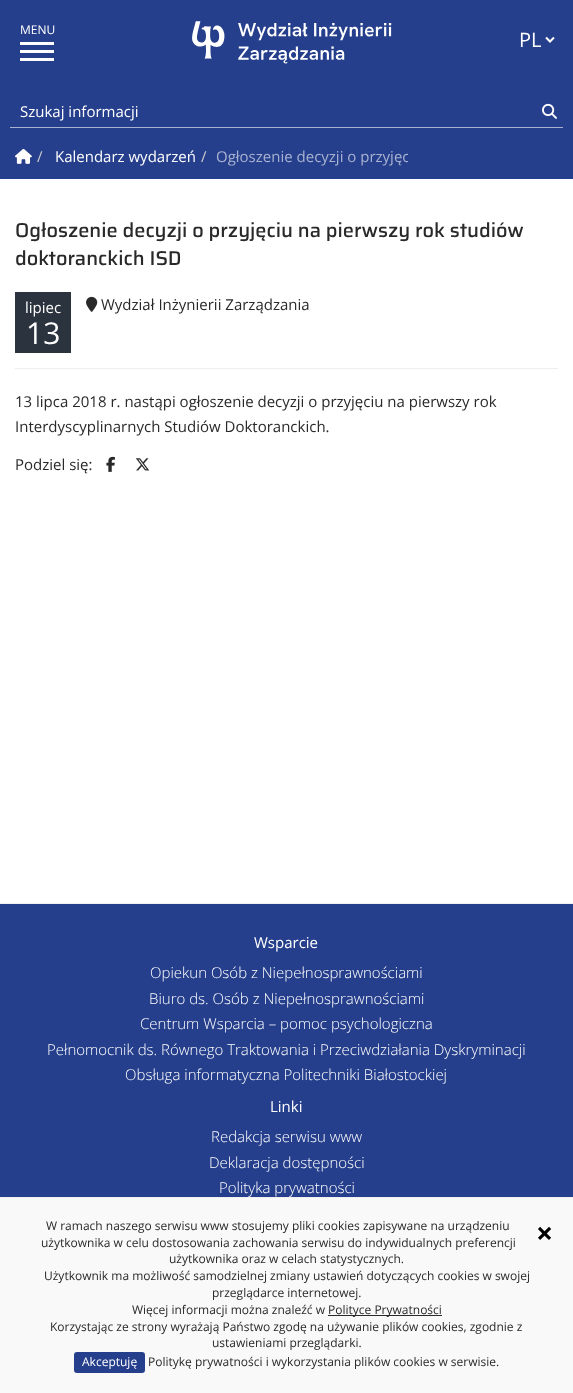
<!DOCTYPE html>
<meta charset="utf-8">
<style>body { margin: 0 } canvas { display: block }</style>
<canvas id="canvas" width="573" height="1393"></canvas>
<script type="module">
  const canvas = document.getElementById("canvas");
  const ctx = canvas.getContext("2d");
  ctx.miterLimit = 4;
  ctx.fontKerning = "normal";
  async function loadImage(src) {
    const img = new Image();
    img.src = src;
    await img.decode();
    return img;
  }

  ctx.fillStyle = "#ffffff";
  ctx.fillRect(0, 0, 573, 1393);
  ctx.fillStyle = "#263f8c";
  ctx.fillRect(0, 0, 573, 179);
  ctx.font = "12px Open Sans";
  ctx.fillStyle = "#ffffff";
  ctx.fillText("MENU", 20, 34);
  ctx.fillRect(20, 42, 34, 3);
  ctx.fillRect(20, 50, 34, 3);
  ctx.fillRect(20, 58, 34, 3);
  ctx.drawImage(await loadImage("img1.png"), 192, 21, 200, 43);
  ctx.beginPath();
  ctx.moveTo(546, 37.5);
  ctx.lineTo(550, 41.5);
  ctx.lineTo(554, 37.5);
  ctx.strokeStyle = "#ffffff";
  ctx.lineWidth = 2;
  ctx.stroke();
  ctx.font = "20px Open Sans";
  ctx.fillText("PL", 519, 47);
  ctx.fillStyle = "#a8b2d1";
  ctx.fillRect(10, 127, 553, 1);
  ctx.font = "15px Open Sans";
  ctx.fillStyle = "#ffffff";
  ctx.fillText("Szukaj informacji", 20, 117);
  ctx.drawImage(await loadImage("img2.png"), 542, 103, 15, 16);
  ctx.drawImage(await loadImage("img3.png"), 15, 148, 17, 16);
  ctx.fillStyle = "#cccccc";
  ctx.fillText("/", 37, 162);
  ctx.fillStyle = "#ffffff";
  ctx.fillText("Kalendarz wydarzeń", 55, 162);
  ctx.fillStyle = "#cccccc";
  ctx.fillText("/", 201, 162);
  ctx.save();
  ctx.beginPath();
  ctx.roundRect(15, 138, 393, 37, 4);
  ctx.clip();
  ctx.fillStyle = "#a8b2d1";
  ctx.fillText("Ogłoszenie decyzji o przyjęc", 216, 162);
  ctx.restore();
  ctx.font = "500 20px Saira";
  ctx.fillStyle = "#292929";
  ctx.fillText("Ogłoszenie decyzji o przyjęciu na pierwszy rok studiów", 15, 237);
  ctx.fillText("doktoranckich ISD", 15, 265);
  ctx.fillStyle = "#2b333e";
  ctx.fillRect(15, 292, 56, 61);
  ctx.font = "15px Open Sans";
  ctx.fillStyle = "#ffffff";
  ctx.fillText("lipiec", 25, 313);
  ctx.font = "30px Open Sans";
  ctx.fillText("13", 26, 344);
  ctx.drawImage(await loadImage("img4.png"), 86, 296, 12, 16);
  ctx.font = "15px Open Sans";
  ctx.fillStyle = "#292929";
  ctx.fillText("Wydział Inżynierii Zarządzania", 101, 310);
  ctx.fillStyle = "#eeeeee";
  ctx.fillRect(15, 368, 543, 1);
  ctx.fillStyle = "#292929";
  ctx.fillText("13 lipca 2018 r. nastąpi ogłoszenie decyzji o przyjęciu na pierwszy rok", 15, 407);
  ctx.fillText("Interdyscyplinarnych Studiów Doktoranckich.", 15, 432);
  ctx.fillText("Podziel się:", 15, 470);
  ctx.drawImage(await loadImage("img5.png"), 106, 456, 9, 16);
  ctx.drawImage(await loadImage("img6.png"), 135, 458, 15, 13);
  ctx.fillStyle = "#efefef";
  ctx.fillRect(0, 903, 573, 1);
  ctx.fillStyle = "#263f8c";
  ctx.fillRect(0, 904, 573, 293);
  ctx.fillStyle = "#ffffff";
  ctx.fillText("Wsparcie", 254, 948);
  ctx.font = "300 15px Open Sans";
  ctx.fillText("Opiekun Osób z Niepełnosprawnościami", 150, 978);
  ctx.fillText("Biuro ds. Osób z Niepełnosprawnościami", 149, 1004);
  ctx.fillText("Centrum Wsparcia – pomoc psychologiczna", 140, 1029);
  ctx.fillText("Pełnomocnik ds. Równego Traktowania i Przeciwdziałania Dyskryminacji", 47, 1055);
  ctx.fillText("Obsługa informatyczna Politechniki Białostockiej", 125, 1080);
  ctx.font = "15px Open Sans";
  ctx.fillText("Linki", 270, 1112);
  ctx.font = "300 15px Open Sans";
  ctx.fillText("Redakcja serwisu www", 211, 1142);
  ctx.fillText("Deklaracja dostępności", 209, 1168);
  ctx.fillText("Polityka prywatności", 219, 1193);
  ctx.fillStyle = "#f9f9f9";
  ctx.fillRect(0, 1198, 573, 195);
  ctx.fillStyle = "#efefef";
  ctx.fillRect(0, 1197, 573, 1);
  ctx.font = "12px Open Sans";
  ctx.fillStyle = "#292929";
  ctx.fillText("W ramach naszego serwisu www stosujemy pliki cookies zapisywane na urządzeniu", 46, 1230);
  ctx.font = "bold 30px Open Sans";
  ctx.fillStyle = "#000000";
  ctx.fillText("×", 536, 1244);
  ctx.font = "12px Open Sans";
  ctx.fillStyle = "#292929";
  ctx.fillText("użytkownika w celu dostosowania zachowania serwisu do indywidualnych preferencji", 41, 1247);
  ctx.fillText("użytkownika oraz w celach statystycznych.", 169, 1263);
  ctx.fillText("Użytkownik ma możliwość samodzielnej zmiany ustawień dotyczących cookies w swojej", 44, 1280);
  ctx.fillText("przeglądarce internetowej.", 212, 1297);
  ctx.fillText("Więcej informacji można znaleźć w", 132, 1314);
  ctx.fillRect(328, 1315, 114, 1);
  ctx.fillText("Polityce Prywatności", 328, 1314);
  ctx.fillText("Korzystając ze strony wyrażają Państwo zgodę na używanie plików cookies, zgodnie z", 50, 1331);
  ctx.fillText("ustawieniami przeglądarki.", 212, 1347);
  ctx.fillStyle = "#263f8c";
  ctx.beginPath();
  ctx.roundRect(74, 1352, 71, 21, 3);
  ctx.fill();
  ctx.fillStyle = "#ffffff";
  ctx.fillText("Akceptuję", 82, 1366);
  ctx.fillStyle = "#292929";
  ctx.fillText("Politykę prywatności i wykorzystania plików cookies w serwisie.", 148, 1366);
</script>
